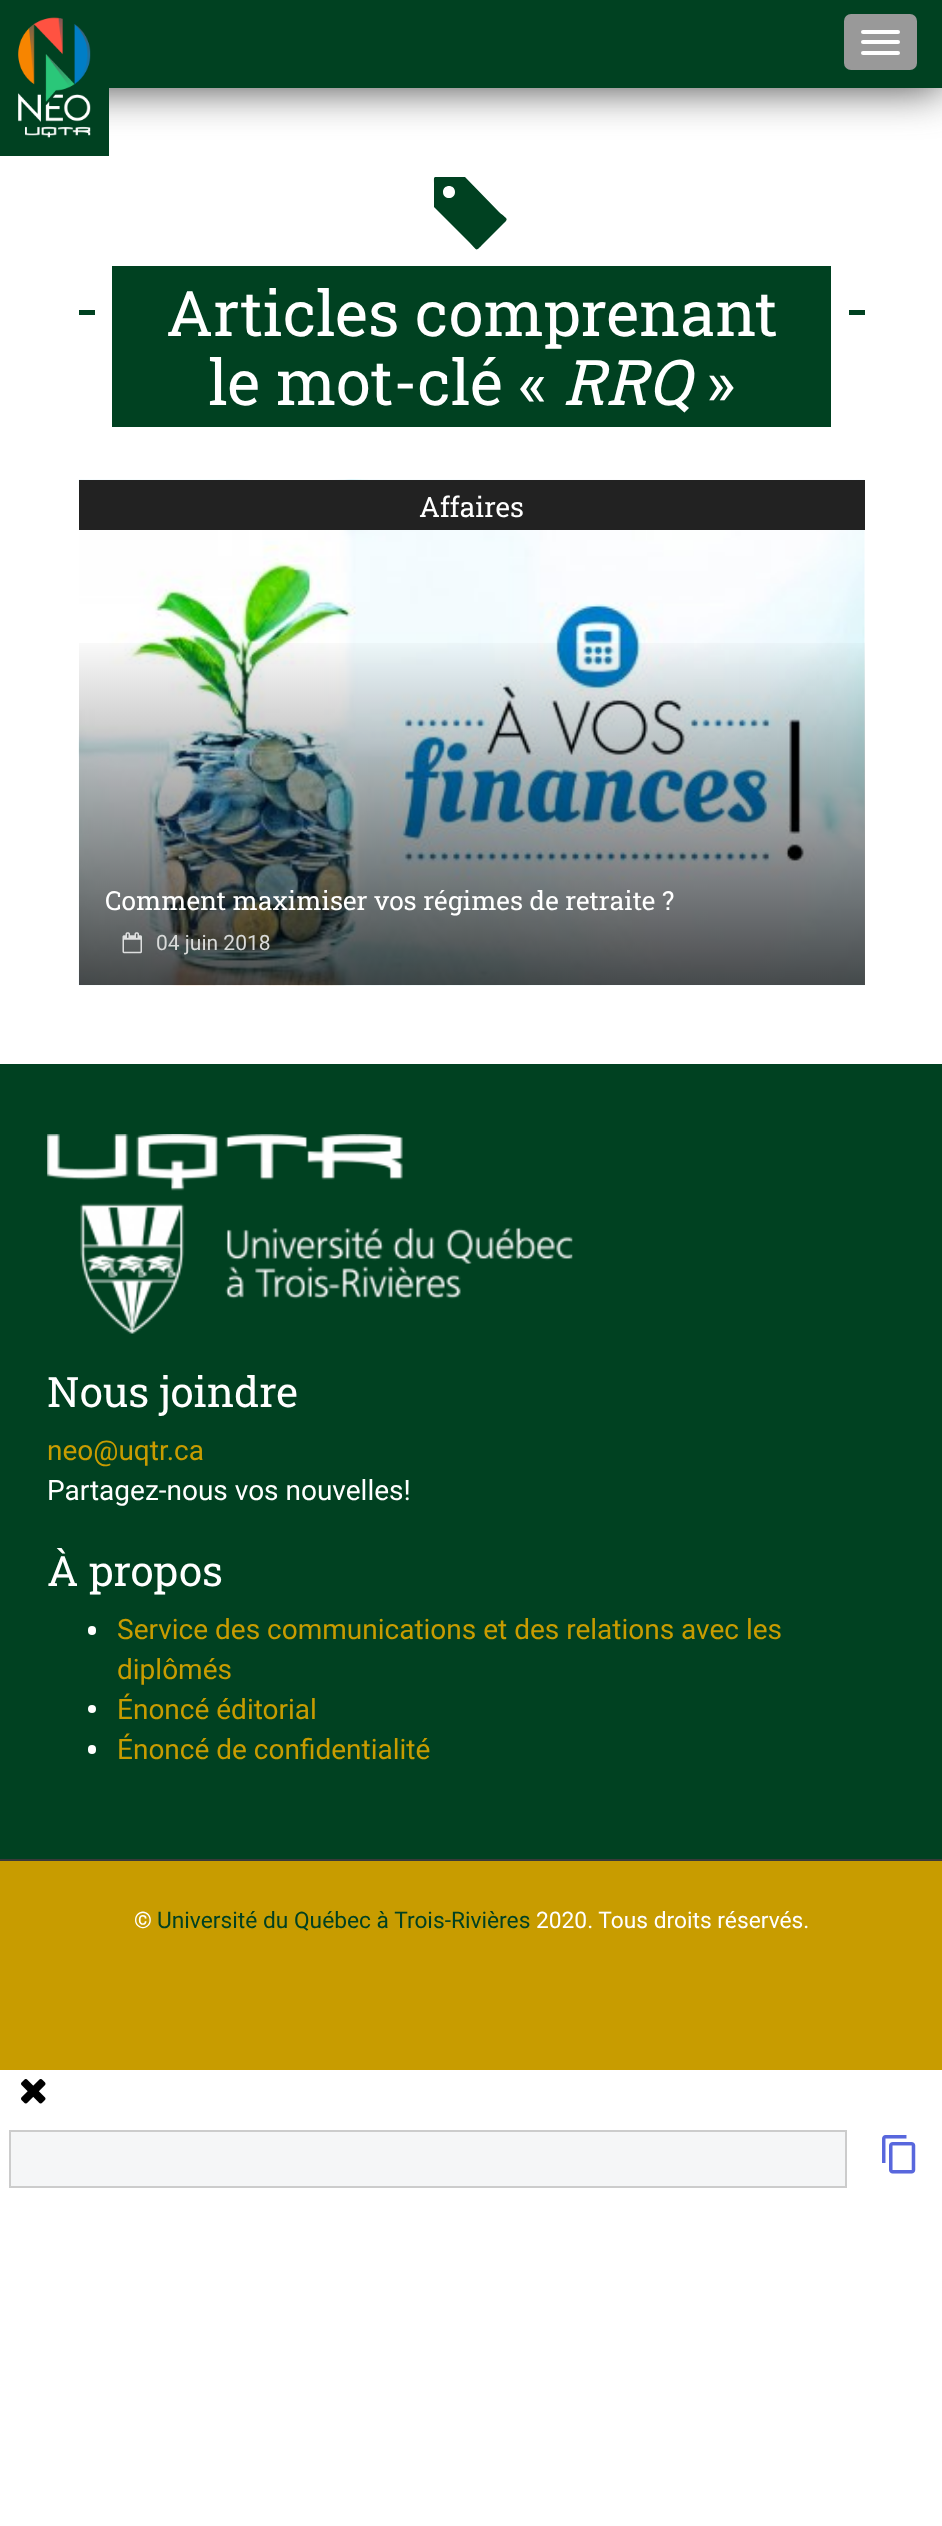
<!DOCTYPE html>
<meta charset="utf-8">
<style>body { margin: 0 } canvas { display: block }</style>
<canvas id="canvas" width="942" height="2526"></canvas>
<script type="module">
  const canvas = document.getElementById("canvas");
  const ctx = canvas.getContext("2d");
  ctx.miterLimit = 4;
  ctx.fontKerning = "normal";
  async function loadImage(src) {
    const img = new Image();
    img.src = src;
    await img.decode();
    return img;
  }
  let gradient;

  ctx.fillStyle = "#ffffff";
  ctx.fillRect(0, 0, 942, 2526);
  ctx.fillStyle = "#404040";
  ctx.filter = "blur(22px)";
  ctx.beginPath();
  ctx.rect(0, 0, 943, 88);
  ctx.fill();
  ctx.filter = "none";
  ctx.fillStyle = "#004121";
  ctx.fillRect(109, 0, 833, 88);
  ctx.fillRect(0, 0, 109, 156);
  ctx.drawImage(await loadImage("img1.png"), 18, 17, 73, 121);
  ctx.fillStyle = "#999999";
  ctx.beginPath();
  ctx.roundRect(844, 14, 73, 56, 7);
  ctx.fill();
  ctx.fillStyle = "#ffffff";
  ctx.beginPath();
  ctx.roundRect(861, 30, 39, 4, 2);
  ctx.fill();
  ctx.beginPath();
  ctx.roundRect(861, 40, 39, 4, 2);
  ctx.fill();
  ctx.beginPath();
  ctx.roundRect(861, 51, 39, 4, 2);
  ctx.fill();
  ctx.fillStyle = "#004121";
  ctx.beginPath();
  ctx.moveTo(465, 177);
  ctx.lineTo(499, 212);
  ctx.bezierCurveTo(508, 220, 509, 218, 502, 225);
  ctx.lineTo(483, 244);
  ctx.bezierCurveTo(475, 252, 478, 251, 469, 242);
  ctx.lineTo(434, 207);
  ctx.lineTo(434, 183);
  ctx.bezierCurveTo(434, 176, 433, 177, 440, 177);
  ctx.closePath();
  ctx.moveTo(455, 192);
  ctx.bezierCurveTo(455, 184, 443, 184, 443, 192);
  ctx.bezierCurveTo(443, 200, 455, 200, 455, 192);
  ctx.closePath();
  ctx.fill();
  ctx.fillRect(79, 310, 16, 5);
  ctx.fillRect(112, 266, 719, 161);
  ctx.font = "63px Roboto Slab";
  ctx.fillStyle = "#ffffff";
  ctx.fillText("Articles comprenant", 166, 336);
  ctx.fillText("le mot-clé «", 208, 405);
  ctx.font = "italic 63px Roboto Slab";
  ctx.fillText("RRQ", 563, 405);
  ctx.font = "63px Roboto Slab";
  ctx.fillText("»", 706, 405);
  ctx.fillStyle = "#004121";
  ctx.fillRect(849, 310, 16, 5);
  ctx.drawImage(await loadImage("img2.png"), 78, 479, 787, 507);
  gradient = ctx.createLinearGradient(472, 632, 472, 985);
  gradient.addColorStop(0, "rgba(0, 0, 0, 0)");
  gradient.addColorStop(1, "rgba(0, 0, 0, 0.7)");
  ctx.fillStyle = gradient;
  ctx.fillRect(79, 643, 786, 342);
  ctx.fillStyle = "#222222";
  ctx.fillRect(79, 480, 786, 50);
  ctx.font = "28px Roboto Slab";
  ctx.fillStyle = "#ffffff";
  ctx.fillText("Affaires", 419, 517);
  ctx.font = "26.25px Roboto Slab";
  ctx.fillText("Comment maximiser vos régimes de retraite ?", 105, 910);
  ctx.drawImage(await loadImage("img3.png"), 122, 932, 20, 22);
  ctx.font = "21px Roboto";
  ctx.fillStyle = "#d9dad9";
  ctx.fillText("04 juin 2018", 156, 950);
  ctx.fillStyle = "#004121";
  ctx.fillRect(0, 1064, 942, 795);
  ctx.drawImage(await loadImage("img4.png"), 47, 1134, 526, 200);
  ctx.font = "42px Roboto Slab";
  ctx.fillStyle = "#ffffff";
  ctx.fillText("Nous joindre", 47, 1407);
  ctx.font = "28px Roboto";
  ctx.fillStyle = "#c89c00";
  ctx.fillText("neo@uqtr.ca", 47, 1460);
  ctx.fillStyle = "#ffffff";
  ctx.fillText("Partagez-nous vos nouvelles!", 47, 1500);
  ctx.font = "42px Roboto Slab";
  ctx.fillText("À propos", 47, 1586);
  ctx.beginPath();
  ctx.roundRect(88, 1626, 8, 9, 4);
  ctx.fill();
  ctx.font = "28px Roboto";
  ctx.fillStyle = "#c89c00";
  ctx.fillText("Service des communications et des relations avec les", 117, 1639);
  ctx.fillText("diplômés", 117, 1679);
  ctx.fillStyle = "#ffffff";
  ctx.beginPath();
  ctx.arc(92, 1709, 4, 0, Math.PI * 2);
  ctx.fill();
  ctx.fillStyle = "#c89c00";
  ctx.fillText("Énoncé éditorial", 117, 1719);
  ctx.fillStyle = "#ffffff";
  ctx.beginPath();
  ctx.roundRect(88, 1745, 8, 9, 4);
  ctx.fill();
  ctx.fillStyle = "#c89c00";
  ctx.fillText("Énoncé de confidentialité", 117, 1759);
  ctx.fillRect(0, 1861, 942, 209);
  ctx.fillStyle = "#393939";
  ctx.fillRect(0, 1859, 942, 2);
  ctx.font = "22.75px Roboto";
  ctx.fillStyle = "#ffffff";
  ctx.fillText("©", 134, 1928);
  ctx.fillStyle = "#004121";
  ctx.fillText("Université du Québec à Trois-Rivières", 157, 1928);
  ctx.fillStyle = "#ffffff";
  ctx.fillText("2020. Tous droits réservés.", 536, 1928);
  ctx.drawImage(await loadImage("img5.png"), 21, 2079, 25, 25);
  ctx.fillStyle = "#f5f6f7";
  ctx.beginPath();
  ctx.rect(10, 2131, 836, 56);
  ctx.fill();
  ctx.strokeStyle = "#cccccc";
  ctx.lineWidth = 2;
  ctx.stroke();
  ctx.drawImage(await loadImage("img6.png"), 882, 2135, 34, 39);
</script>
